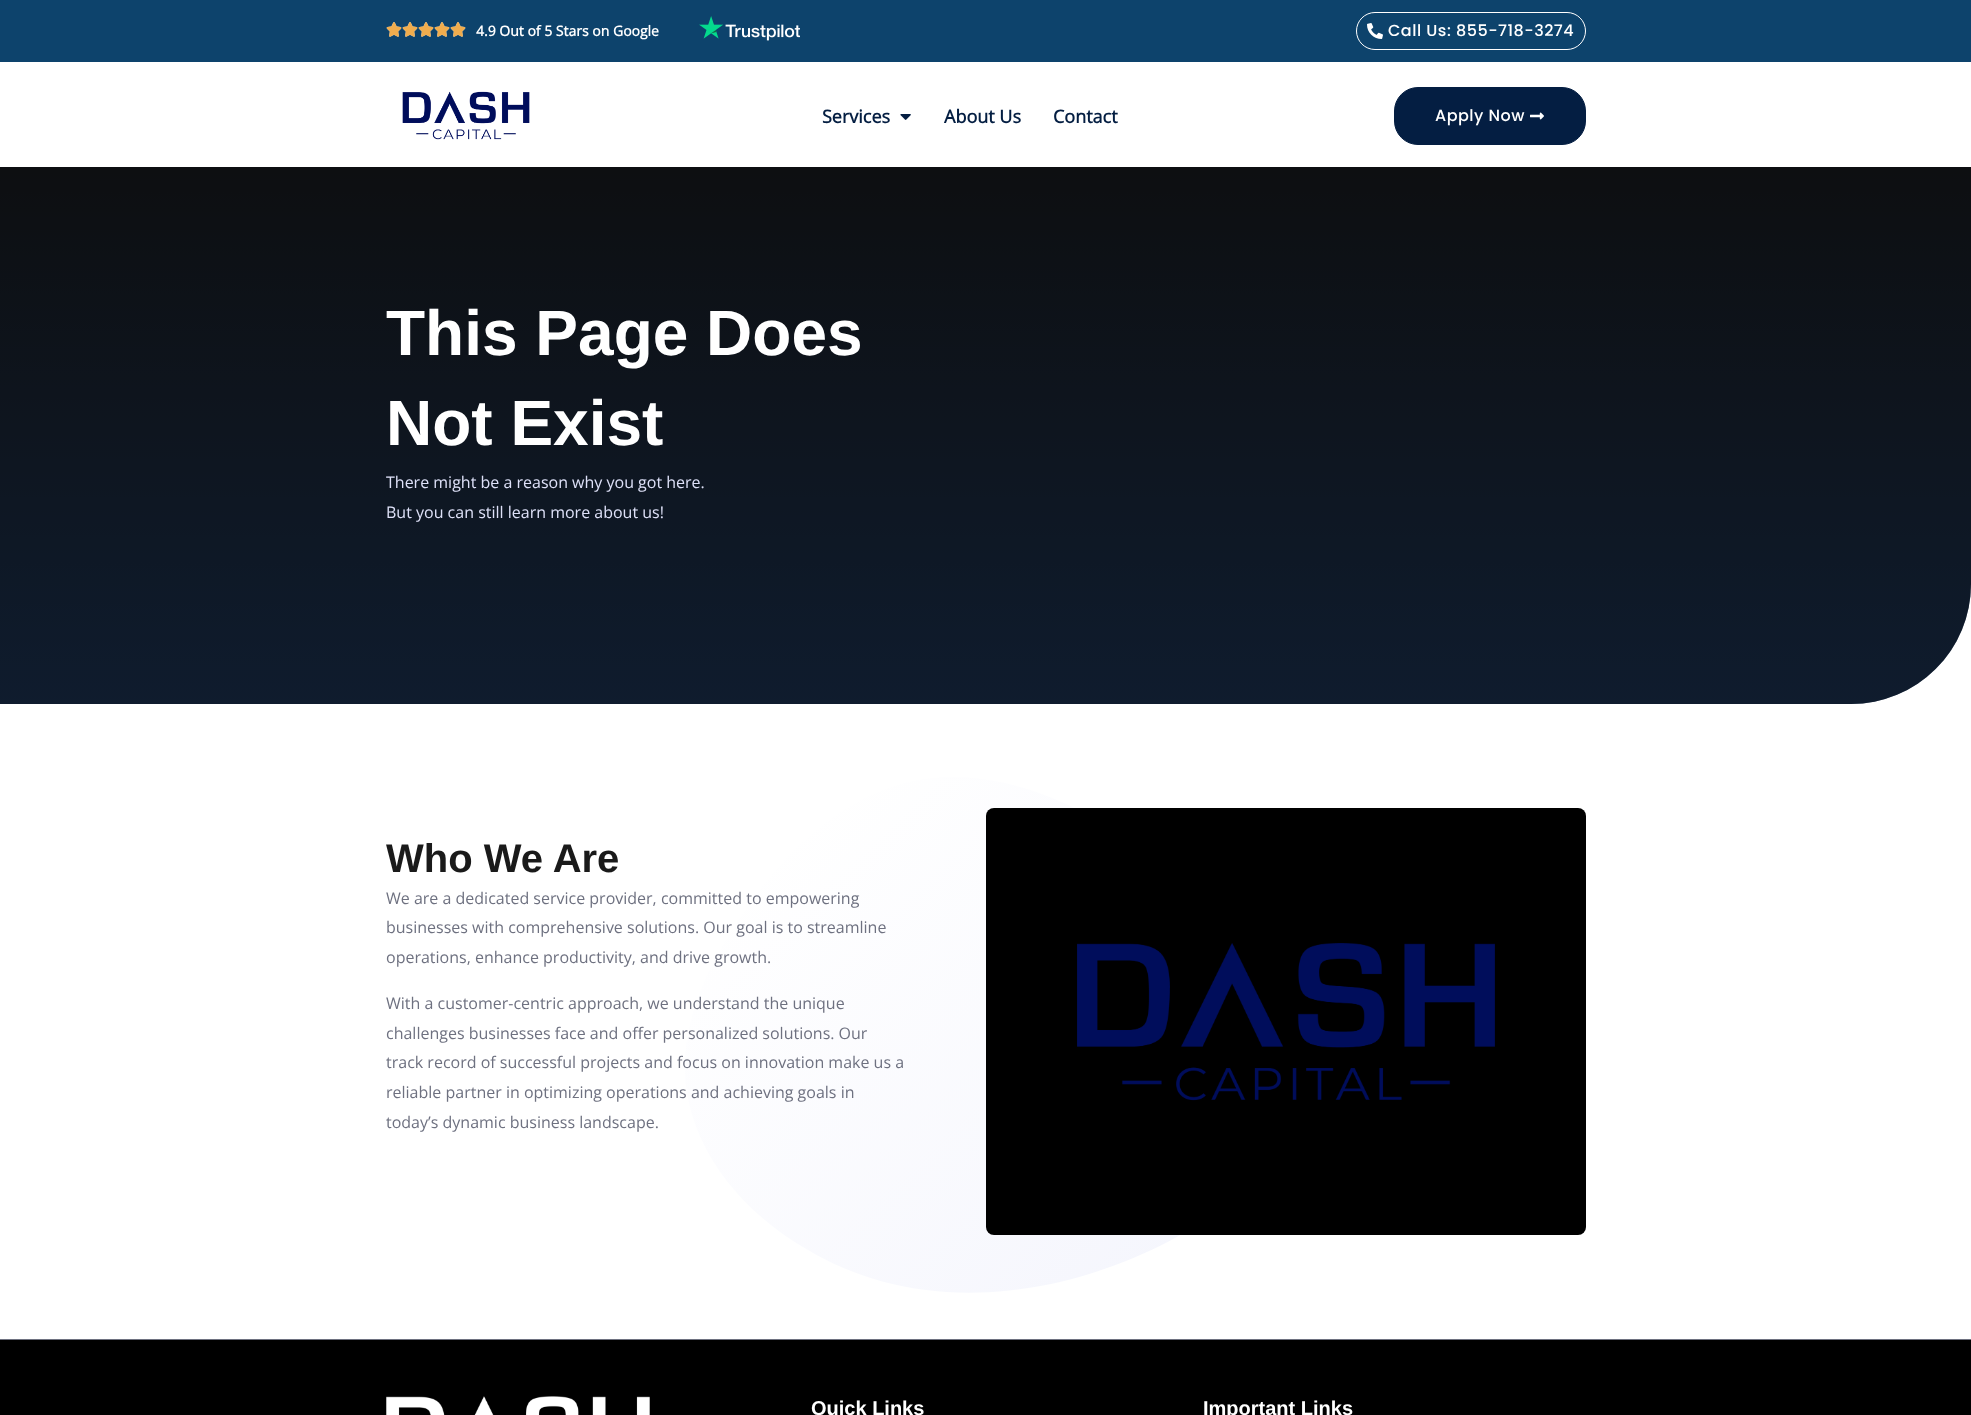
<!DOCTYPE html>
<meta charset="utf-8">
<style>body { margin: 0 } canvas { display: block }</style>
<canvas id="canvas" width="1971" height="1415"></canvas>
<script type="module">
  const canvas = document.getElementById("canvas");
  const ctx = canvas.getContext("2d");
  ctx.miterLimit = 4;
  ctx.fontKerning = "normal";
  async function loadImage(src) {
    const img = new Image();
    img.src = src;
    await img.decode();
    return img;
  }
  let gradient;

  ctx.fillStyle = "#ffffff";
  ctx.fillRect(0, 0, 1971, 1415);
  ctx.fillStyle = "#0d436c";
  ctx.fillRect(0, 0, 1971, 62);
  ctx.drawImage(await loadImage("img1.png"), 386, 22, 16, 15);
  ctx.drawImage(await loadImage("img2.png"), 386, 22, 16, 15);
  ctx.drawImage(await loadImage("img1.png"), 402, 22, 16, 15);
  ctx.drawImage(await loadImage("img2.png"), 402, 22, 16, 15);
  ctx.drawImage(await loadImage("img1.png"), 418, 22, 16, 15);
  ctx.drawImage(await loadImage("img2.png"), 418, 22, 16, 15);
  ctx.drawImage(await loadImage("img1.png"), 434, 22, 16, 15);
  ctx.drawImage(await loadImage("img2.png"), 434, 22, 16, 15);
  ctx.drawImage(await loadImage("img1.png"), 450, 22, 16, 15);
  ctx.drawImage(await loadImage("img2.png"), 450, 22, 16, 15);
  ctx.font = "bold 14px Open Sans";
  ctx.fillStyle = "#ffffff";
  ctx.fillText("4.9 Out of 5 Stars on Google", 476, 36);
  ctx.drawImage(await loadImage("img3.png"), 699, 16, 101, 25);
  ctx.beginPath();
  ctx.roundRect(1356.5, 12.5, 229, 37, 18.5);
  ctx.strokeStyle = "#ffffff";
  ctx.stroke();
  ctx.drawImage(await loadImage("img4.png"), 1367, 23, 16, 16);
  ctx.letterSpacing = "0.5px";
  ctx.font = "500 16px Poppins";
  ctx.fillText("Call Us: 855-718-3274", 1388, 36);
  gradient = ctx.createLinearGradient(986, 89, 986, 704);
  gradient.addColorStop(0, "#000000");
  gradient.addColorStop(1, "#041e42");
  ctx.fillStyle = gradient;
  ctx.beginPath();
  ctx.roundRect(0, 89, 1971, 615, [0, 0, 120, 0]);
  ctx.fill();
  ctx.fillStyle = "rgba(26, 26, 26, 0.5)";
  ctx.beginPath();
  ctx.roundRect(0, 89, 1971, 615, [0, 0, 120, 0]);
  ctx.fill();
  ctx.fillStyle = "#ffffff";
  ctx.fillRect(0, 89, 1971, 78);
  ctx.drawImage(await loadImage("img5.png"), 402, 91, 128, 49);
  ctx.letterSpacing = "0px";
  ctx.font = "bold 18px Open Sans";
  ctx.fillStyle = "#041e42";
  ctx.fillText("Services", 822, 123);
  ctx.drawImage(await loadImage("img6.png"), 900, 114, 11, 6);
  ctx.fillText("About Us", 944, 123);
  ctx.fillText("Contact", 1053, 123);
  ctx.beginPath();
  ctx.roundRect(1394.5, 87.5, 191, 57, 23.5);
  ctx.fill();
  ctx.strokeStyle = "#041e42";
  ctx.stroke();
  ctx.letterSpacing = "0.5px";
  ctx.font = "500 16px Poppins";
  ctx.fillStyle = "#ffffff";
  ctx.fillText("Apply Now", 1435, 121);
  ctx.drawImage(await loadImage("img7.png"), 1530, 112, 14, 8);
  ctx.letterSpacing = "0px";
  ctx.font = "bold 64px Liberation Sans";
  ctx.fillText("This Page Does", 386, 355);
  ctx.fillText("Not Exist", 386, 445);
  ctx.font = "16px Open Sans";
  ctx.fillStyle = "#dee1f8";
  ctx.fillText("There might be a reason why you got here.", 386, 488);
  ctx.fillText("But you can still learn more about us!", 386, 518);
  gradient = ctx.createLinearGradient(808, 814, 1209, 1233);
  gradient.addColorStop(0, "#ffffff");
  gradient.addColorStop(1, "#f5f6fd");
  ctx.fillStyle = gradient;
  ctx.beginPath();
  ctx.moveTo(1159, 865);
  ctx.bezierCurveTo(1237, 932, 1305, 1040, 1282, 1123);
  ctx.bezierCurveTo(1260, 1205, 1148, 1263, 1051, 1284);
  ctx.bezierCurveTo(954, 1304, 872, 1288, 808, 1250);
  ctx.bezierCurveTo(743, 1213, 697, 1155, 687, 1093);
  ctx.bezierCurveTo(677, 1032, 704, 968, 746, 909);
  ctx.bezierCurveTo(787, 849, 844, 794, 918, 780);
  ctx.bezierCurveTo(990, 767, 1080, 796, 1159, 865);
  ctx.closePath();
  ctx.fill();
  ctx.font = "bold 40px Liberation Sans";
  ctx.fillStyle = "#1a1a1a";
  ctx.fillText("Who We Are", 386, 872);
  ctx.font = "16px Open Sans";
  ctx.fillStyle = "#6e7180";
  ctx.fillText("We are a dedicated service provider, committed to empowering", 386, 904);
  ctx.fillText("businesses with comprehensive solutions. Our goal is to streamline", 386, 933);
  ctx.fillText("operations, enhance productivity, and drive growth.", 386, 963);
  ctx.fillText("With a customer-centric approach, we understand the unique", 386, 1009);
  ctx.fillText("challenges businesses face and offer personalized solutions. Our", 386, 1039);
  ctx.fillText("track record of successful projects and focus on innovation make us a", 386, 1068);
  ctx.fillText("reliable partner in optimizing operations and achieving goals in", 386, 1098);
  ctx.fillText("today’s dynamic business landscape.", 386, 1128);
  ctx.fillStyle = "#000000";
  ctx.beginPath();
  ctx.roundRect(986, 808, 600, 427, 8);
  ctx.fill();
  ctx.drawImage(await loadImage("img8.png"), 1077, 943, 418, 158);
  ctx.fillRect(0, 1340, 1971, 75);
  ctx.fillStyle = "#6e7180";
  ctx.fillRect(0, 1339, 1971, 1);
  ctx.drawImage(await loadImage("img9.png"), 386, 1396, 264, 19);
  ctx.font = "bold 20px Liberation Sans";
  ctx.fillStyle = "#ffffff";
  ctx.fillText("Quick Links", 811, 1415);
  ctx.fillText("Important Links", 1203, 1415);
</script>
